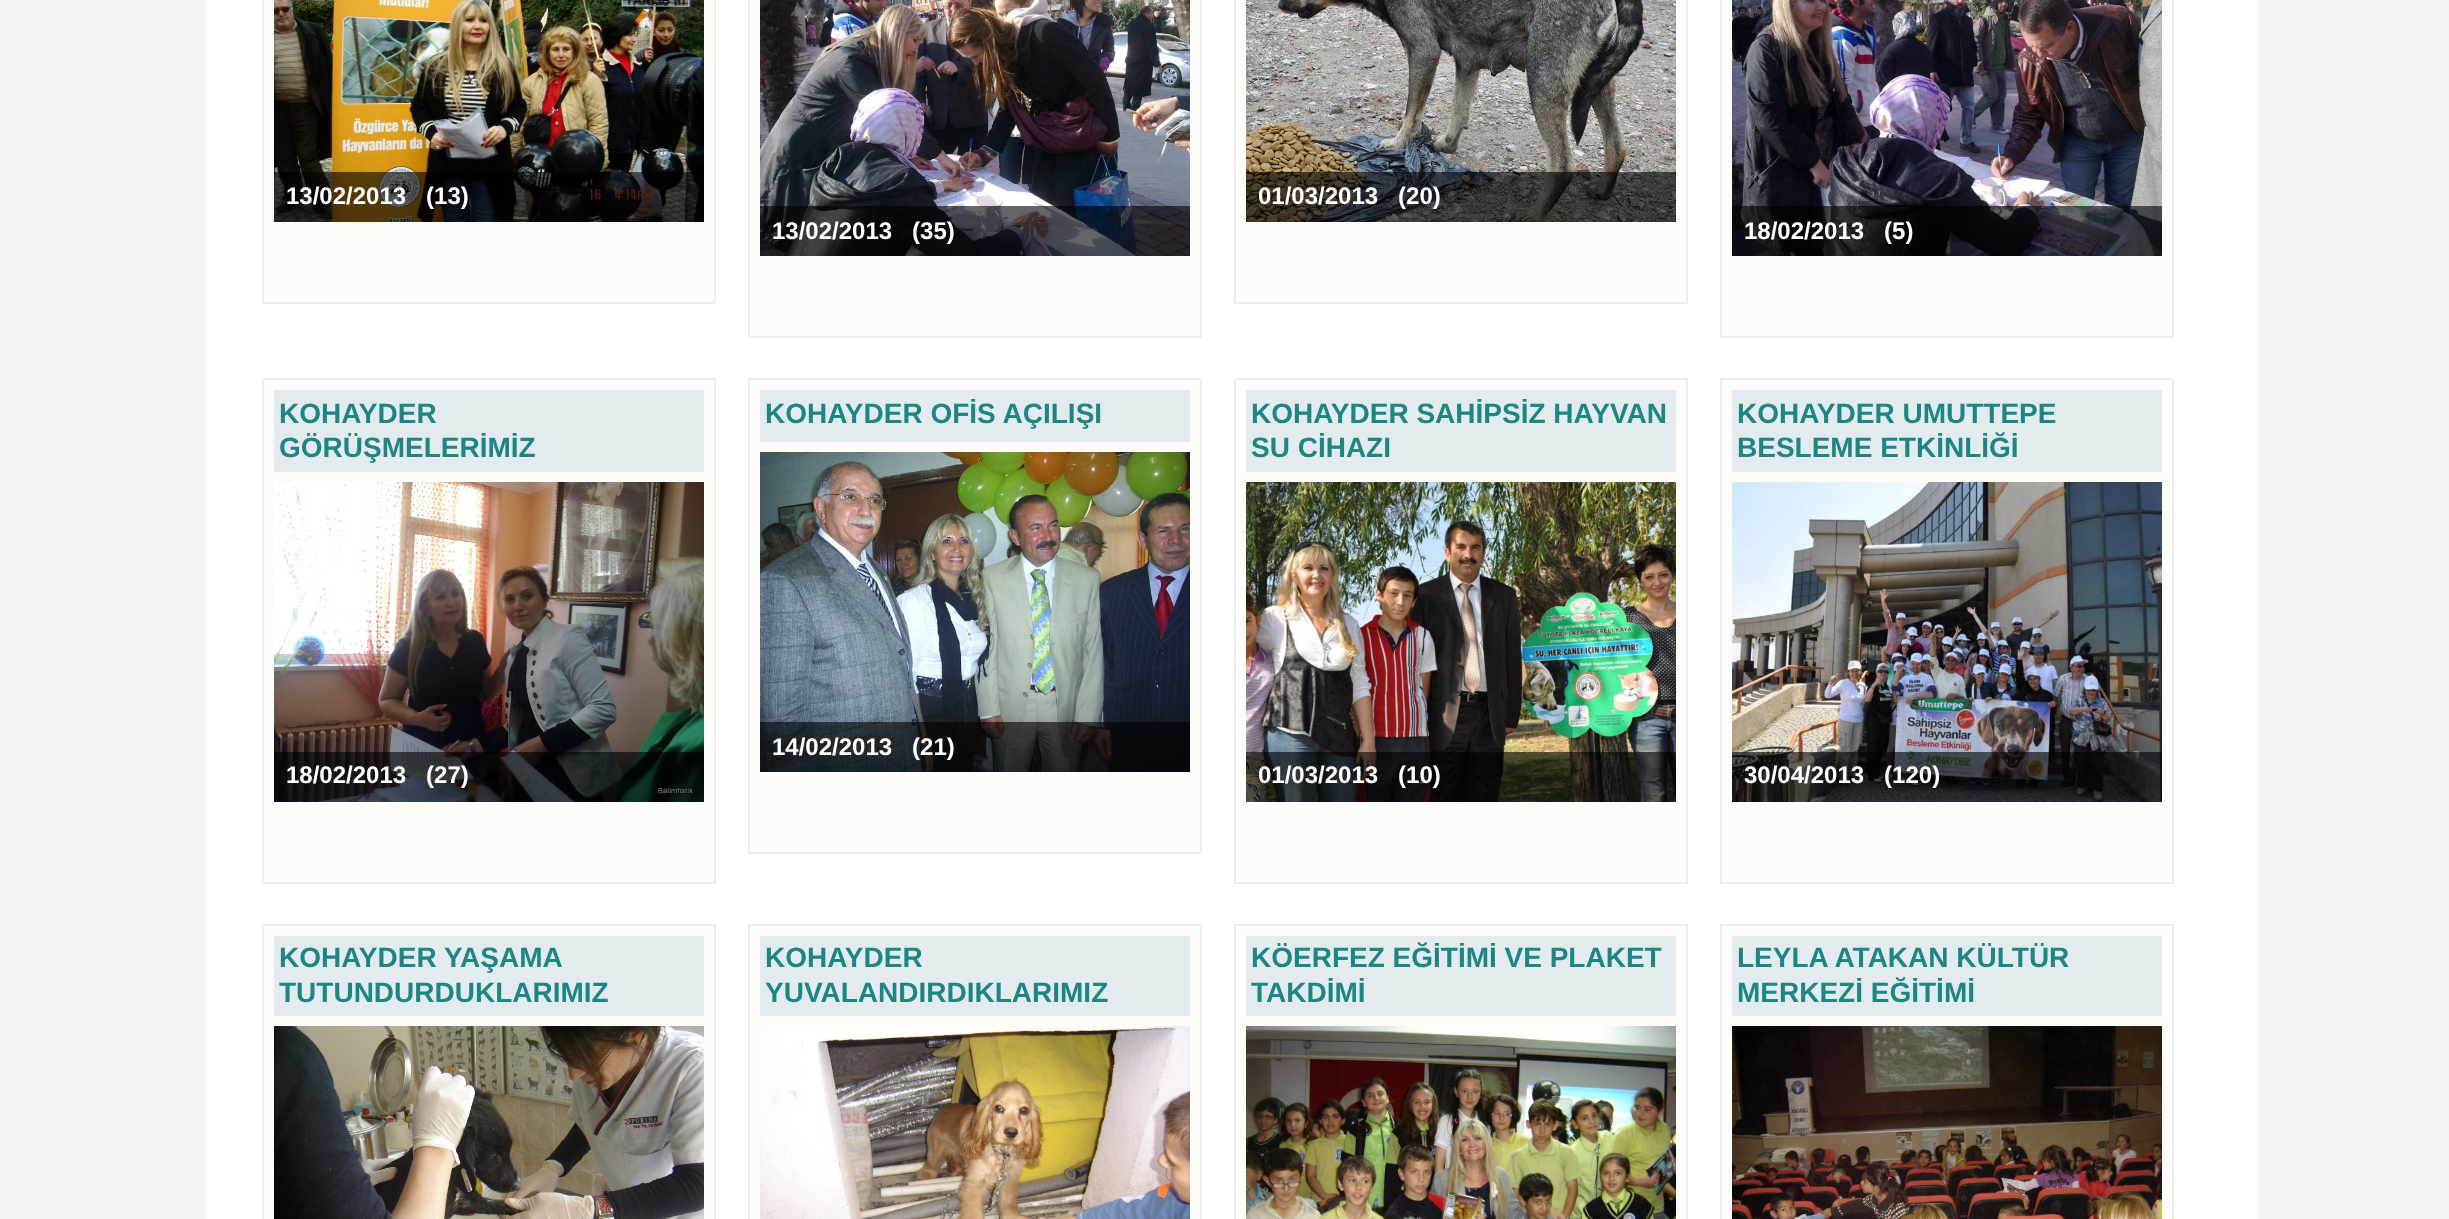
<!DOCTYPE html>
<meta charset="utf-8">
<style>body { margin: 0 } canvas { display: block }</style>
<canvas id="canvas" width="2449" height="1219"></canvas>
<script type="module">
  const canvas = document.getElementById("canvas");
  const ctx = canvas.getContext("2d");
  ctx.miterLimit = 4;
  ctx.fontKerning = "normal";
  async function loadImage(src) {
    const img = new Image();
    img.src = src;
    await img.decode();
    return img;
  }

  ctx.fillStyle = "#f6f2f1";
  ctx.fillRect(0, 0, 2449, 1219);
  ctx.fillStyle = "#ffffff";
  ctx.fillRect(206, 0, 2052, 1219);
  ctx.fillStyle = "#fcfcf8";
  ctx.beginPath();
  ctx.rect(263, -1, 452, 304);
  ctx.fill();
  ctx.strokeStyle = "#eeeeee";
  ctx.lineWidth = 2;
  ctx.stroke();
  ctx.drawImage(await loadImage("img1.png"), 274, 0, 430, 222);
  ctx.fillStyle = "rgba(0, 0, 0, 0.6)";
  ctx.fillRect(274, 172, 430, 50);
  ctx.font = "bold 24px Liberation Sans";
  ctx.fillStyle = "#ffffff";
  ctx.fillText("13/02/2013   (13)", 286, 204);
  ctx.fillStyle = "#fcfcf8";
  ctx.beginPath();
  ctx.rect(1235, -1, 452, 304);
  ctx.fill();
  ctx.stroke();
  ctx.drawImage(await loadImage("img2.png"), 1246, 0, 430, 222);
  ctx.fillStyle = "rgba(0, 0, 0, 0.6)";
  ctx.fillRect(1246, 172, 430, 50);
  ctx.fillStyle = "#ffffff";
  ctx.fillText("01/03/2013   (20)", 1258, 204);
  ctx.fillStyle = "#fcfcf8";
  ctx.beginPath();
  ctx.rect(749, -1, 452, 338);
  ctx.fill();
  ctx.stroke();
  ctx.drawImage(await loadImage("img3.png"), 760, 0, 430, 256);
  ctx.fillStyle = "rgba(0, 0, 0, 0.6)";
  ctx.fillRect(760, 206, 430, 50);
  ctx.fillStyle = "#ffffff";
  ctx.fillText("13/02/2013   (35)", 772, 239);
  ctx.fillStyle = "#fcfcf8";
  ctx.beginPath();
  ctx.rect(1721, -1, 452, 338);
  ctx.fill();
  ctx.stroke();
  ctx.drawImage(await loadImage("img4.png"), 1732, 0, 430, 256);
  ctx.fillStyle = "rgba(0, 0, 0, 0.6)";
  ctx.fillRect(1732, 206, 430, 50);
  ctx.fillStyle = "#ffffff";
  ctx.fillText("18/02/2013   (5)", 1744, 239);
  ctx.fillStyle = "#fcfcf8";
  ctx.beginPath();
  ctx.rect(263, 379, 452, 504);
  ctx.fill();
  ctx.stroke();
  ctx.fillStyle = "#e3ebee";
  ctx.fillRect(274, 390, 430, 82);
  ctx.font = "bold 28px Liberation Sans";
  ctx.fillStyle = "#1d8682";
  ctx.fillText("KOHAYDER", 279, 423);
  ctx.fillText("GÖRÜŞMELERİMİZ", 279, 457);
  ctx.drawImage(await loadImage("img5.png"), 274, 482, 430, 320);
  ctx.fillStyle = "rgba(0, 0, 0, 0.6)";
  ctx.fillRect(274, 752, 430, 50);
  ctx.font = "bold 24px Liberation Sans";
  ctx.fillStyle = "#ffffff";
  ctx.fillText("18/02/2013   (27)", 286, 783);
  ctx.fillStyle = "#fcfcf8";
  ctx.beginPath();
  ctx.rect(749, 379, 452, 474);
  ctx.fill();
  ctx.stroke();
  ctx.fillStyle = "#e3ebee";
  ctx.fillRect(760, 390, 430, 52);
  ctx.font = "bold 28px Liberation Sans";
  ctx.fillStyle = "#1d8682";
  ctx.fillText("KOHAYDER OFİS AÇILIŞI", 765, 423);
  ctx.drawImage(await loadImage("img6.png"), 760, 452, 430, 320);
  ctx.fillStyle = "rgba(0, 0, 0, 0.6)";
  ctx.fillRect(760, 722, 430, 50);
  ctx.font = "bold 24px Liberation Sans";
  ctx.fillStyle = "#ffffff";
  ctx.fillText("14/02/2013   (21)", 772, 755);
  ctx.fillStyle = "#fcfcf8";
  ctx.beginPath();
  ctx.rect(1235, 379, 452, 504);
  ctx.fill();
  ctx.stroke();
  ctx.fillStyle = "#e3ebee";
  ctx.fillRect(1246, 390, 430, 82);
  ctx.font = "bold 28px Liberation Sans";
  ctx.fillStyle = "#1d8682";
  ctx.fillText("KOHAYDER SAHİPSİZ HAYVAN", 1251, 423);
  ctx.fillText("SU CİHAZI", 1251, 457);
  ctx.drawImage(await loadImage("img7.png"), 1246, 482, 430, 320);
  ctx.fillStyle = "rgba(0, 0, 0, 0.6)";
  ctx.fillRect(1246, 752, 430, 50);
  ctx.font = "bold 24px Liberation Sans";
  ctx.fillStyle = "#ffffff";
  ctx.fillText("01/03/2013   (10)", 1258, 783);
  ctx.fillStyle = "#fcfcf8";
  ctx.beginPath();
  ctx.rect(1721, 379, 452, 504);
  ctx.fill();
  ctx.stroke();
  ctx.fillStyle = "#e3ebee";
  ctx.fillRect(1732, 390, 430, 82);
  ctx.font = "bold 28px Liberation Sans";
  ctx.fillStyle = "#1d8682";
  ctx.fillText("KOHAYDER UMUTTEPE", 1737, 423);
  ctx.fillText("BESLEME ETKİNLİĞİ", 1737, 457);
  ctx.drawImage(await loadImage("img8.png"), 1732, 482, 430, 320);
  ctx.fillStyle = "rgba(0, 0, 0, 0.6)";
  ctx.fillRect(1732, 752, 430, 50);
  ctx.font = "bold 24px Liberation Sans";
  ctx.fillStyle = "#ffffff";
  ctx.fillText("30/04/2013   (120)", 1744, 783);
  ctx.fillStyle = "#fcfcf8";
  ctx.beginPath();
  ctx.rect(263, 925, 452, 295);
  ctx.fill();
  ctx.stroke();
  ctx.fillStyle = "#e3ebee";
  ctx.fillRect(274, 936, 430, 80);
  ctx.font = "bold 28px Liberation Sans";
  ctx.fillStyle = "#1d8682";
  ctx.fillText("KOHAYDER YAŞAMA", 279, 967);
  ctx.fillText("TUTUNDURDUKLARIMIZ", 279, 1002);
  ctx.drawImage(await loadImage("img9.png"), 274, 1026, 430, 193);
  ctx.fillStyle = "#fcfcf8";
  ctx.beginPath();
  ctx.rect(749, 925, 452, 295);
  ctx.fill();
  ctx.stroke();
  ctx.fillStyle = "#e3ebee";
  ctx.fillRect(760, 936, 430, 80);
  ctx.fillStyle = "#1d8682";
  ctx.fillText("KOHAYDER", 765, 967);
  ctx.fillText("YUVALANDIRDIKLARIMIZ", 765, 1002);
  ctx.drawImage(await loadImage("img10.png"), 760, 1026, 430, 193);
  ctx.fillStyle = "#fcfcf8";
  ctx.beginPath();
  ctx.rect(1235, 925, 452, 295);
  ctx.fill();
  ctx.stroke();
  ctx.fillStyle = "#e3ebee";
  ctx.fillRect(1246, 936, 430, 80);
  ctx.fillStyle = "#1d8682";
  ctx.fillText("KÖERFEZ EĞİTİMİ VE PLAKET", 1251, 967);
  ctx.fillText("TAKDİMİ", 1251, 1002);
  ctx.drawImage(await loadImage("img11.png"), 1246, 1026, 430, 193);
  ctx.fillStyle = "#fcfcf8";
  ctx.beginPath();
  ctx.rect(1721, 925, 452, 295);
  ctx.fill();
  ctx.stroke();
  ctx.fillStyle = "#e3ebee";
  ctx.fillRect(1732, 936, 430, 80);
  ctx.fillStyle = "#1d8682";
  ctx.fillText("LEYLA ATAKAN KÜLTÜR", 1737, 967);
  ctx.fillText("MERKEZİ EĞİTİMİ", 1737, 1002);
  ctx.drawImage(await loadImage("img12.png"), 1732, 1026, 430, 193);
</script>
